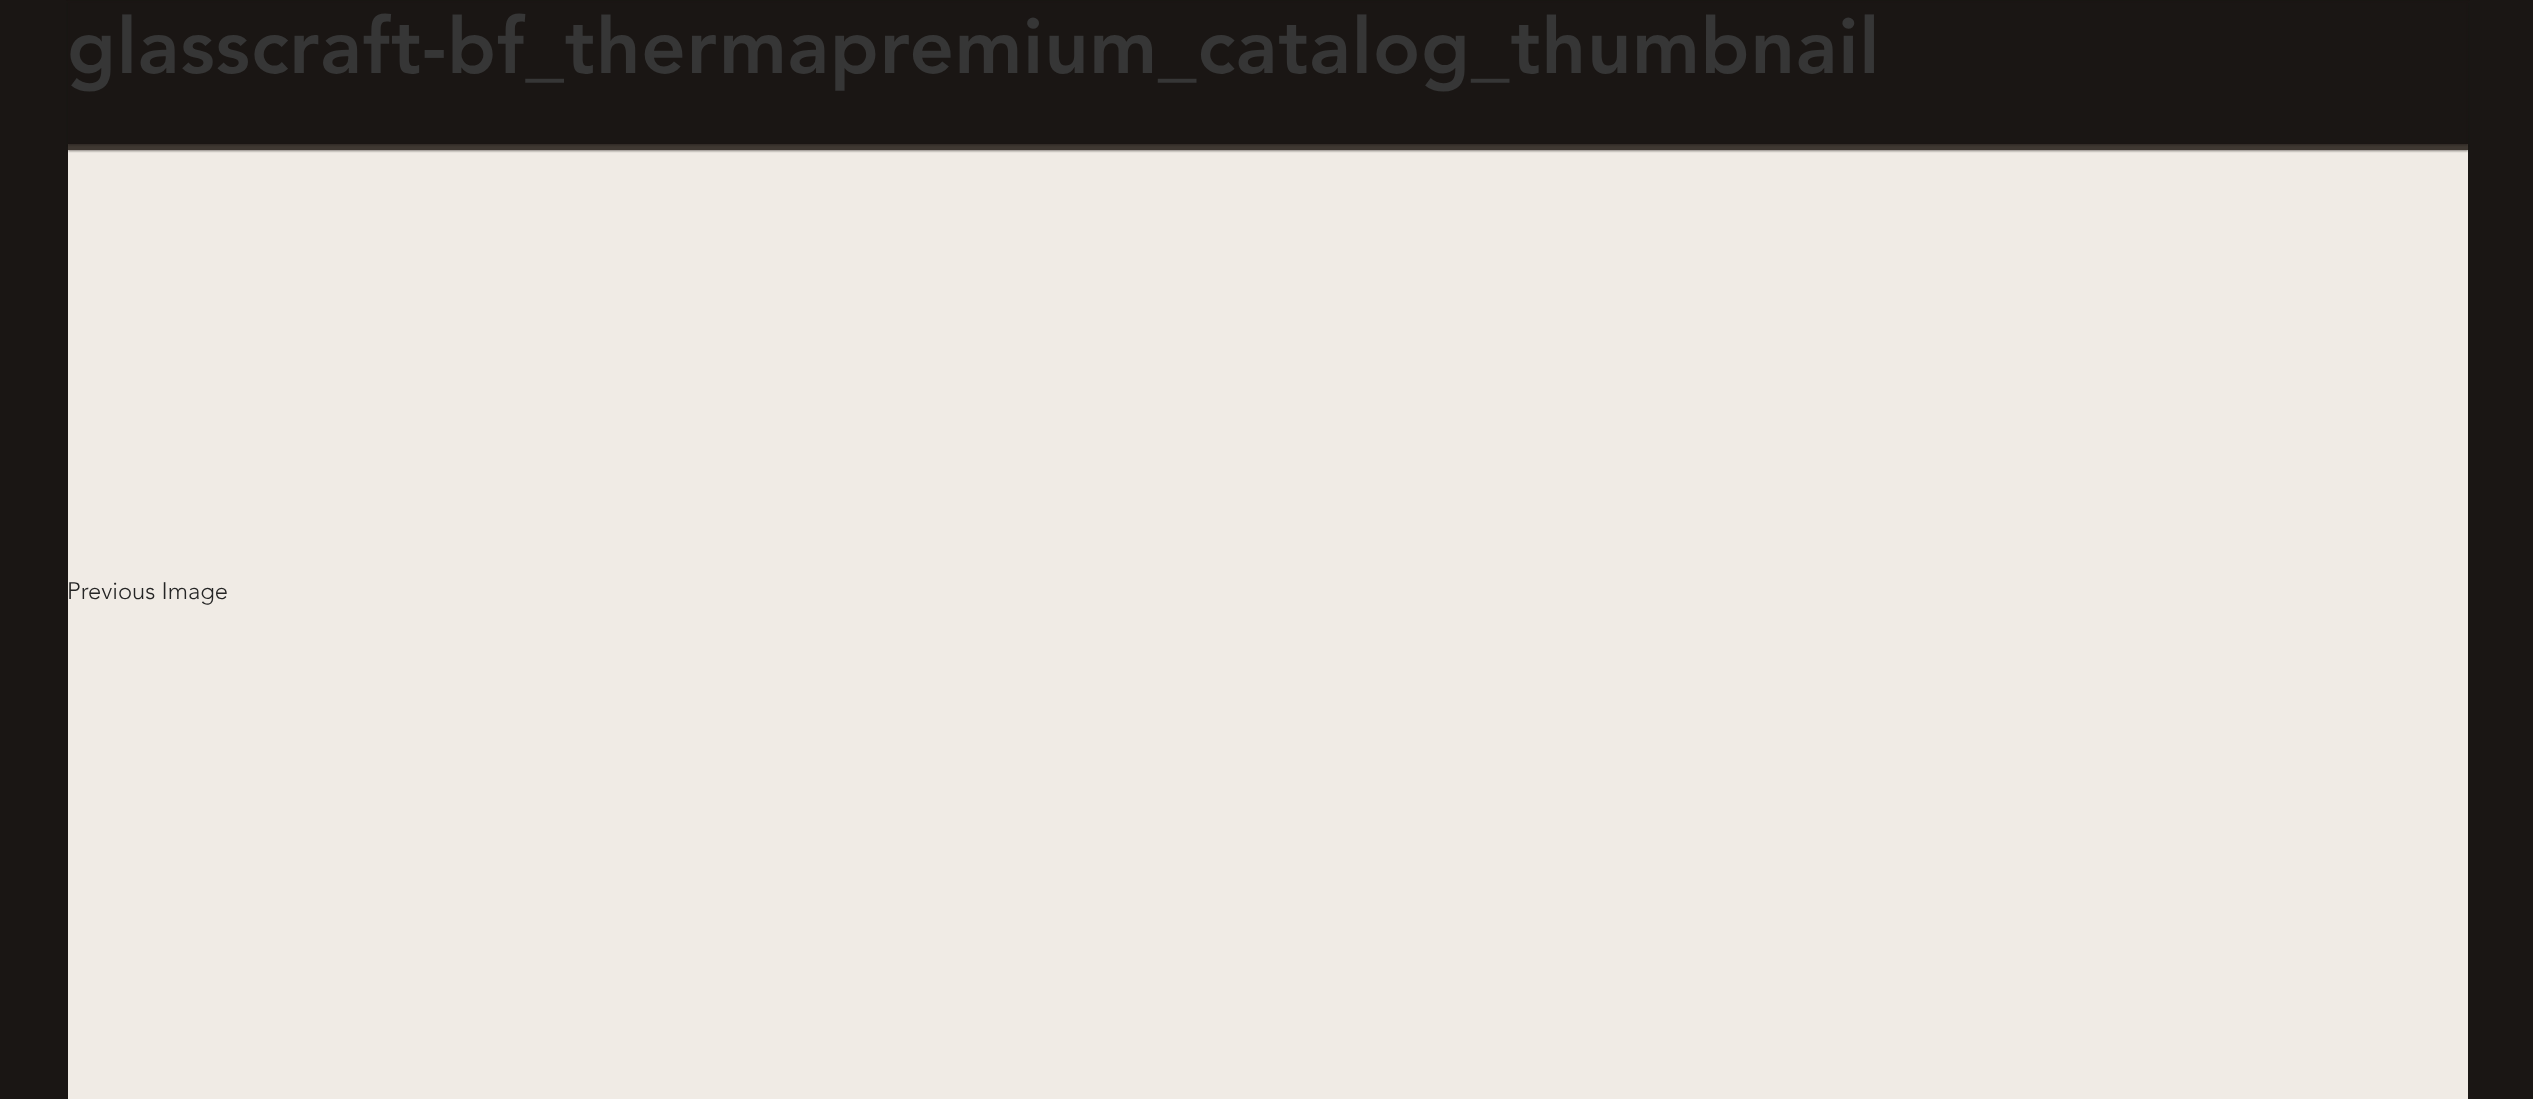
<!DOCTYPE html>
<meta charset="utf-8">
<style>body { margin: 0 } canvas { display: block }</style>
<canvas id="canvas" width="2533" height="1099"></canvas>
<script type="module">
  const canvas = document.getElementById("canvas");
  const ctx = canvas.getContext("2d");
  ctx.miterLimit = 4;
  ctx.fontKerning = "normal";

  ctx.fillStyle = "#1a1614";
  ctx.fillRect(0, 0, 2533, 1099);
  ctx.fillStyle = "#f0ebe5";
  ctx.fillRect(68, 150, 2400, 949);
  ctx.fillStyle = "rgba(26, 22, 20, 0.5)";
  ctx.filter = "blur(1px)";
  ctx.beginPath();
  ctx.rect(68, 1, 2400, 150);
  ctx.fill();
  ctx.filter = "none";
  ctx.fillStyle = "#3f3832";
  ctx.fillRect(68, 144, 2400, 6);
  ctx.fillStyle = "rgba(26, 22, 20, 0.5)";
  ctx.filter = "blur(1px)";
  ctx.beginPath();
  ctx.rect(68, 1, 2400, 144);
  ctx.fill();
  ctx.filter = "none";
  ctx.letterSpacing = "0.9px";
  ctx.font = "900 77.5px Avenir";
  ctx.fillStyle = "#363636";
  ctx.fillText("glasscraft-bf_thermapremium_catalog_thumbnail", 67, 73);
  ctx.letterSpacing = "0px";
  ctx.font = "300 23.75px Avenir";
  ctx.fillStyle = "#252525";
  ctx.fillText("Previous Image", 67, 599);
</script>
